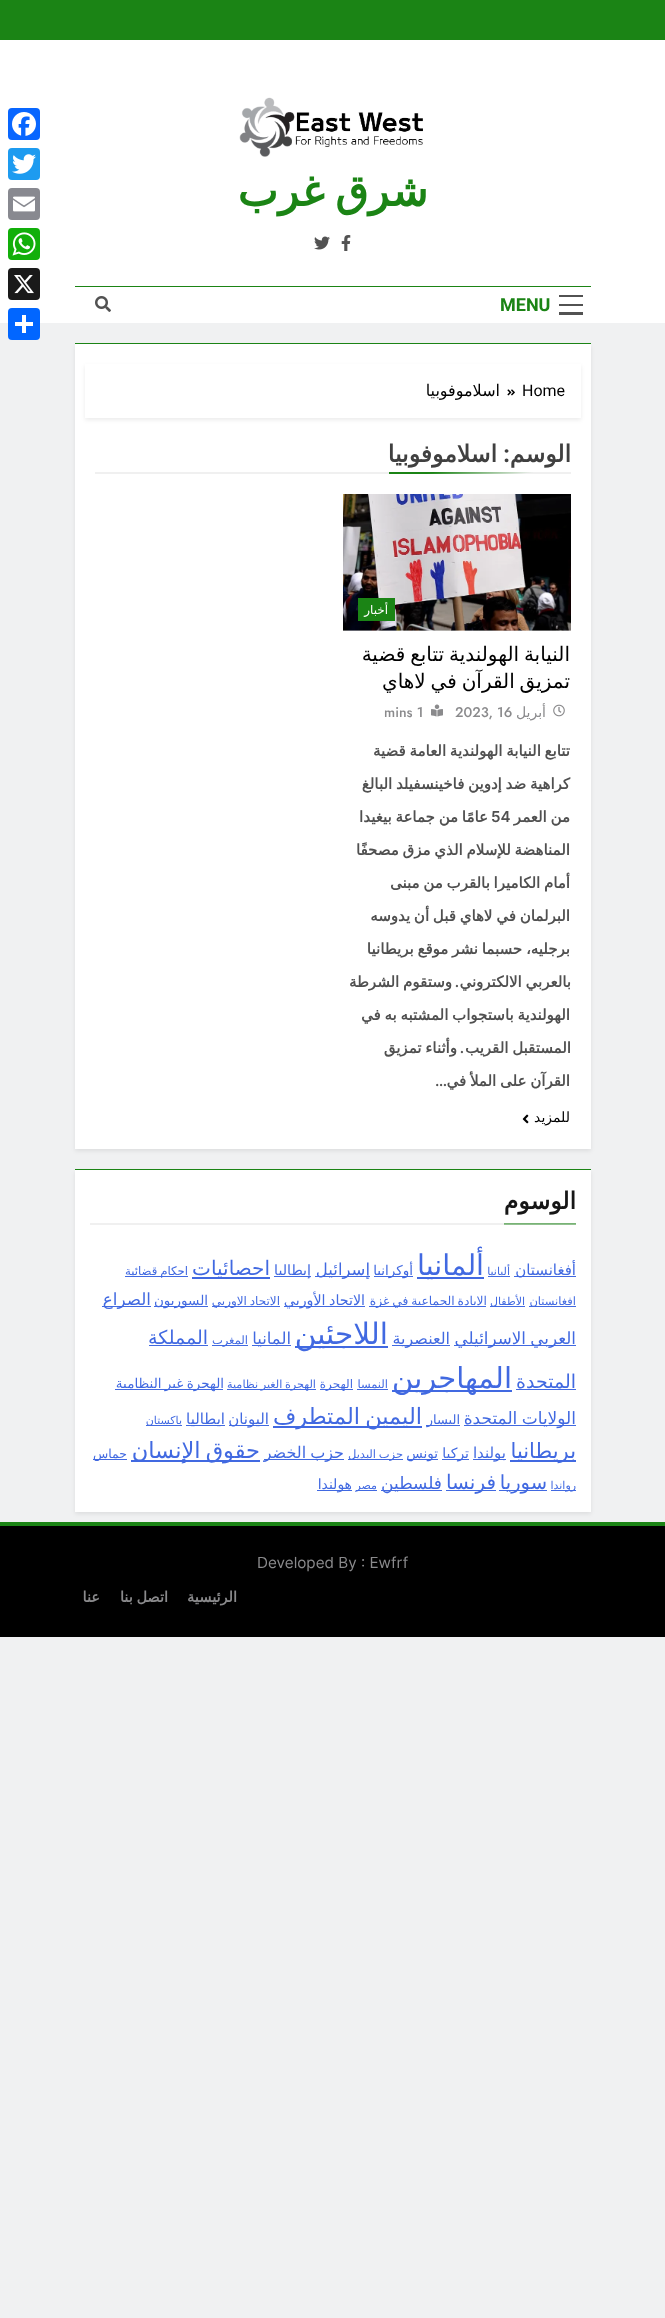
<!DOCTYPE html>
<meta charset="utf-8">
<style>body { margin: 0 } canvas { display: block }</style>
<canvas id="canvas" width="665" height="2318"></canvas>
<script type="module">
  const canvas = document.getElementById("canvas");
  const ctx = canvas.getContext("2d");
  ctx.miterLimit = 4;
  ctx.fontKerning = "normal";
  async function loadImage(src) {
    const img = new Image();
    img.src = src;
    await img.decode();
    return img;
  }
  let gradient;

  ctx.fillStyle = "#f0f1f2";
  ctx.fillRect(0, 0, 665, 2318);
  ctx.fillStyle = "#1b8415";
  ctx.fillRect(0, 0, 665, 40);
  ctx.fillStyle = "#ffffff";
  ctx.fillRect(0, 40, 665, 283);
  ctx.drawImage(await loadImage("img1.png"), 239, 97, 184, 60);
  ctx.wordSpacing = "-3px";
  ctx.direction = "rtl";
  ctx.font = "bold 43px DejaVu Sans";
  ctx.fillStyle = "#1b8415";
  ctx.fillText("شرق غرب", 428, 206);
  ctx.drawImage(await loadImage("img2.png"), 341, 235, 10, 16);
  ctx.drawImage(await loadImage("img3.png"), 314, 236, 16, 14);
  ctx.fillRect(75, 286, 516, 1);
  ctx.fillStyle = "#525252";
  ctx.fillRect(559, 295, 24, 2);
  ctx.fillRect(559, 304, 24, 2);
  ctx.fillRect(559, 312, 24, 3);
  ctx.wordSpacing = "0px";
  ctx.direction = "ltr";
  ctx.font = "bold 18px Roboto";
  ctx.fillStyle = "#1b8415";
  ctx.fillText("MENU", 500, 311);
  ctx.drawImage(await loadImage("img4.png"), 95, 296, 16, 16);
  ctx.fillStyle = "rgba(0, 0, 0, 0.08)";
  ctx.filter = "blur(2px)";
  ctx.beginPath();
  ctx.rect(75, 346, 516, 805);
  ctx.fill();
  ctx.filter = "none";
  ctx.fillStyle = "#ffffff";
  ctx.fillRect(75, 344, 516, 805);
  ctx.fillStyle = "#1b8415";
  ctx.fillRect(75, 343, 516, 1);
  ctx.save();
  ctx.beginPath();
  ctx.moveTo(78, 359);
  ctx.lineTo(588, 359);
  ctx.lineTo(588, 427);
  ctx.lineTo(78, 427);
  ctx.closePath();
  ctx.moveTo(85, 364);
  ctx.lineTo(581, 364);
  ctx.lineTo(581, 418);
  ctx.lineTo(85, 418);
  ctx.closePath();
  ctx.clip("evenodd");
  ctx.fillStyle = "rgba(0, 0, 0, 0.08)";
  ctx.filter = "blur(2px)";
  ctx.beginPath();
  ctx.rect(85, 366, 496, 54);
  ctx.fill();
  ctx.filter = "none";
  ctx.restore();
  ctx.font = "16px Roboto";
  ctx.fillStyle = "#000000";
  ctx.fillText("Home", 522, 396);
  ctx.drawImage(await loadImage("img5.png"), 507, 389, 8, 7);
  ctx.direction = "rtl";
  ctx.font = "16px DejaVu Sans";
  ctx.fillText("اسلاموفوبيا", 500, 396);
  ctx.fillStyle = "#f0f0f0";
  ctx.fillRect(95, 472, 294, 2);
  ctx.font = "bold 23.5px DejaVu Sans";
  ctx.fillStyle = "#404040";
  ctx.fillText("الوسم", 571, 462);
  ctx.font = "bold 23.5px Roboto";
  ctx.fillText(":", 510, 462);
  ctx.font = "bold 23.5px DejaVu Sans";
  ctx.fillText("اسلاموفوبيا", 497, 462);
  gradient = ctx.createLinearGradient(479, 466, 481, 480);
  gradient.addColorStop(0, "#1b8415");
  gradient.addColorStop(1, "#f0f0f0");
  ctx.fillStyle = gradient;
  ctx.fillRect(389, 472, 182, 2);
  ctx.drawImage(await loadImage("img6.png"), 343, 494, 228, 137);
  ctx.fillStyle = "#1b8415";
  ctx.fillRect(358, 598, 37, 23);
  ctx.font = "12px DejaVu Sans";
  ctx.fillStyle = "#ffffff";
  ctx.fillText("أخبار", 388, 614);
  ctx.wordSpacing = "-1.5px";
  ctx.font = "20px DejaVu Sans";
  ctx.fillStyle = "#000000";
  ctx.fillText("النيابة الهولندية تتابع قضية", 570, 661);
  ctx.fillText("تمزيق القرآن في لاهاي", 570, 688);
  ctx.drawImage(await loadImage("img7.png"), 553, 704, 12, 13);
  ctx.wordSpacing = "0px";
  ctx.font = "14px DejaVu Sans";
  ctx.fillStyle = "#8a8a8c";
  ctx.fillText("أبريل", 546, 717);
  ctx.direction = "ltr";
  ctx.font = "500 14px Jost";
  ctx.fillText("2023, 16", 455, 717);
  ctx.drawImage(await loadImage("img8.png"), 431, 704, 12, 13);
  ctx.fillText("mins 1", 384, 717);
  ctx.wordSpacing = "-1px";
  ctx.direction = "rtl";
  ctx.font = "bold 15px DejaVu Sans";
  ctx.fillStyle = "#505050";
  ctx.fillText("تتابع النيابة الهولندية العامة قضية", 570, 756);
  ctx.fillText("كراهية ضد إدوين فاخينسفيلد البالغ", 570, 789);
  ctx.fillText("من العمر", 570, 822);
  ctx.wordSpacing = "0px";
  ctx.direction = "ltr";
  ctx.font = "600 15px Inter";
  ctx.fillText("54", 491, 822);
  ctx.wordSpacing = "-1px";
  ctx.direction = "rtl";
  ctx.font = "bold 15px DejaVu Sans";
  ctx.fillText("عامًا من جماعة بيغيدا", 488, 822);
  ctx.fillText("المناهضة للإسلام الذي مزق مصحفًا", 570, 855);
  ctx.fillText("أمام الكاميرا بالقرب من مبنى", 570, 888);
  ctx.fillText("البرلمان في لاهاي قبل أن يدوسه", 570, 921);
  ctx.fillText("برجليه، حسبما نشر موقع بريطانيا", 570, 954);
  ctx.fillText("بالعربي الالكتروني", 571, 987);
  ctx.wordSpacing = "0px";
  ctx.font = "600 15px Inter";
  ctx.fillText(".", 459, 987);
  ctx.wordSpacing = "-1px";
  ctx.font = "bold 15px DejaVu Sans";
  ctx.fillText("وستقوم الشرطة", 452, 987);
  ctx.fillText("الهولندية باستجواب المشتبه به في", 570, 1020);
  ctx.fillText("المستقبل القريب", 571, 1053);
  ctx.wordSpacing = "0px";
  ctx.font = "600 15px Inter";
  ctx.fillText(".", 464, 1053);
  ctx.wordSpacing = "-1px";
  ctx.font = "bold 15px DejaVu Sans";
  ctx.fillText("وأثناء تمزيق", 457, 1053);
  ctx.fillText("القرآن على الملأ في", 570, 1086);
  ctx.wordSpacing = "0px";
  ctx.font = "600 15px Inter";
  ctx.fillText("…", 447, 1086);
  ctx.font = "14px DejaVu Sans";
  ctx.fillStyle = "#000000";
  ctx.fillText("للمزيد", 570, 1122);
  ctx.drawImage(await loadImage("img9.png"), 522, 1114, 7, 10);
  ctx.fillStyle = "rgba(0, 0, 0, 0.08)";
  ctx.filter = "blur(2px)";
  ctx.beginPath();
  ctx.rect(75, 1172, 516, 342);
  ctx.fill();
  ctx.filter = "none";
  ctx.fillStyle = "#ffffff";
  ctx.fillRect(75, 1170, 516, 342);
  ctx.fillStyle = "#1b8415";
  ctx.fillRect(75, 1169, 516, 1);
  ctx.fillStyle = "#f0f0f0";
  ctx.fillRect(90, 1223, 414, 2);
  ctx.font = "bold 23.5px DejaVu Sans";
  ctx.fillStyle = "#161616";
  ctx.fillText("الوسوم", 576, 1209);
  gradient = ctx.createLinearGradient(540, 1220, 540, 1228);
  gradient.addColorStop(0, "#1b8415");
  gradient.addColorStop(1, "#f0f0f0");
  ctx.fillStyle = gradient;
  ctx.fillRect(504, 1223, 72, 2);
  ctx.fillStyle = "#4169e1";
  ctx.fillRect(514, 1276, 62, 1);
  ctx.font = "15px DejaVu Sans";
  ctx.fillText("أفغانستان", 576, 1275);
  ctx.fillRect(488, 1276, 22, 1);
  ctx.font = "11px DejaVu Sans";
  ctx.fillText("ألبانيا", 510, 1275);
  ctx.fillRect(417, 1277, 67, 2);
  ctx.font = "28.5px DejaVu Sans";
  ctx.fillText("ألمانيا", 484, 1275);
  ctx.fillRect(374, 1276, 39, 1);
  ctx.font = "13.5px DejaVu Sans";
  ctx.fillText("أوكرانيا", 413, 1275);
  ctx.fillRect(315, 1276, 55, 1);
  ctx.font = "16.5px DejaVu Sans";
  ctx.fillText("إسرائيل", 370, 1275);
  ctx.fillRect(274, 1276, 37, 1);
  ctx.font = "14.25px DejaVu Sans";
  ctx.fillText("إيطاليا", 311, 1275);
  ctx.fillRect(192, 1277, 78, 2);
  ctx.font = "20px DejaVu Sans";
  ctx.fillText("احصائيات", 270, 1275);
  ctx.fillRect(125, 1276, 63, 1);
  ctx.wordSpacing = "-1px";
  ctx.font = "11.75px DejaVu Sans";
  ctx.fillText("احكام قضائية", 188, 1275);
  ctx.fillRect(529, 1306, 47, 1);
  ctx.wordSpacing = "0px";
  ctx.font = "11.5px DejaVu Sans";
  ctx.fillText("افغانستان", 576, 1305);
  ctx.fillRect(490, 1306, 35, 1);
  ctx.font = "11px DejaVu Sans";
  ctx.fillText("الأطفال", 525, 1305);
  ctx.fillRect(369, 1306, 117, 1);
  ctx.wordSpacing = "-1px";
  ctx.font = "12.25px DejaVu Sans";
  ctx.fillText("الابادة الجماعية في غزة", 487, 1305);
  ctx.fillRect(284, 1306, 81, 1);
  ctx.font = "14.25px DejaVu Sans";
  ctx.fillText("الاتحاد الأوربي", 365, 1305);
  ctx.fillRect(212, 1306, 68, 1);
  ctx.font = "12px DejaVu Sans";
  ctx.fillText("الاتحاد الاوربي", 280, 1305);
  ctx.fillRect(154, 1306, 54, 1);
  ctx.wordSpacing = "0px";
  ctx.font = "13.5px DejaVu Sans";
  ctx.fillText("السوريون", 208, 1305);
  ctx.fillRect(102, 1306, 49, 1);
  ctx.font = "16.75px DejaVu Sans";
  ctx.fillText("الصراع", 151, 1305);
  ctx.fillRect(454, 1345, 122, 1);
  ctx.wordSpacing = "-1px";
  ctx.fillText("العربي الاسرائيلي", 576, 1344);
  ctx.fillRect(392, 1345, 58, 1);
  ctx.wordSpacing = "0px";
  ctx.font = "16px DejaVu Sans";
  ctx.fillText("العنصرية", 450, 1344);
  ctx.fillRect(295, 1346, 93, 2);
  ctx.font = "29.5px DejaVu Sans";
  ctx.fillText("اللاجئين", 388, 1344);
  ctx.fillRect(252, 1345, 39, 1);
  ctx.font = "16.5px DejaVu Sans";
  ctx.fillText("المانيا", 291, 1344);
  ctx.fillRect(212, 1345, 36, 1);
  ctx.font = "11.5px DejaVu Sans";
  ctx.fillText("المغرب", 248, 1344);
  ctx.font = "19px DejaVu Sans";
  ctx.fillText("المملكة", 208, 1344);
  ctx.fillRect(149, 1345, 59, 1);
  ctx.fillText("المتحدة", 576, 1388);
  ctx.fillRect(516, 1389, 60, 1);
  ctx.fillRect(392, 1390, 120, 2);
  ctx.font = "29px DejaVu Sans";
  ctx.fillText("المهاجرين", 512, 1388);
  ctx.font = "11.5px DejaVu Sans";
  ctx.fillText("النمسا", 388, 1388);
  ctx.fillRect(357, 1389, 31, 1);
  ctx.fillRect(320, 1389, 33, 1);
  ctx.font = "12px DejaVu Sans";
  ctx.fillText("الهجرة", 353, 1388);
  ctx.fillRect(227, 1389, 89, 1);
  ctx.wordSpacing = "-1px";
  ctx.font = "11.25px DejaVu Sans";
  ctx.fillText("الهجرة الغير نظامية", 316, 1388);
  ctx.fillRect(115, 1389, 108, 1);
  ctx.font = "13.5px DejaVu Sans";
  ctx.fillText("الهجرة غير النظامية", 224, 1388);
  ctx.fillRect(464, 1425, 112, 1);
  ctx.font = "17px DejaVu Sans";
  ctx.fillText("الولايات المتحدة", 576, 1424);
  ctx.fillRect(426, 1425, 34, 1);
  ctx.wordSpacing = "0px";
  ctx.font = "13px DejaVu Sans";
  ctx.fillText("اليسار", 460, 1424);
  ctx.fillRect(273, 1426, 149, 2);
  ctx.wordSpacing = "-2px";
  ctx.font = "22.5px DejaVu Sans";
  ctx.fillText("اليمين المتطرف", 422, 1424);
  ctx.fillRect(229, 1425, 40, 1);
  ctx.wordSpacing = "0px";
  ctx.font = "15px DejaVu Sans";
  ctx.fillText("اليونان", 269, 1424);
  ctx.fillRect(186, 1425, 39, 1);
  ctx.fillText("ايطاليا", 225, 1424);
  ctx.fillRect(146, 1425, 36, 1);
  ctx.font = "11px DejaVu Sans";
  ctx.fillText("باكستان", 182, 1424);
  ctx.fillRect(510, 1460, 66, 2);
  ctx.font = "21px DejaVu Sans";
  ctx.fillText("بريطانيا", 576, 1458);
  ctx.fillRect(473, 1459, 33, 1);
  ctx.font = "15px DejaVu Sans";
  ctx.fillText("بولندا", 506, 1458);
  ctx.fillRect(442, 1459, 27, 1);
  ctx.font = "14px DejaVu Sans";
  ctx.fillText("تركيا", 469, 1458);
  ctx.fillRect(407, 1459, 31, 1);
  ctx.font = "13.5px DejaVu Sans";
  ctx.fillText("تونس", 438, 1458);
  ctx.fillRect(348, 1459, 55, 1);
  ctx.wordSpacing = "-1px";
  ctx.font = "11.5px DejaVu Sans";
  ctx.fillText("حزب البديل", 403, 1458);
  ctx.fillRect(264, 1459, 80, 1);
  ctx.font = "16px DejaVu Sans";
  ctx.fillText("حزب الخضر", 344, 1458);
  ctx.fillRect(131, 1460, 129, 2);
  ctx.wordSpacing = "-2px";
  ctx.font = "22.5px DejaVu Sans";
  ctx.fillText("حقوق الإنسان", 260, 1458);
  ctx.fillRect(93, 1459, 34, 1);
  ctx.wordSpacing = "0px";
  ctx.font = "12.5px DejaVu Sans";
  ctx.fillText("حماس", 127, 1458);
  ctx.fillRect(551, 1490, 25, 1);
  ctx.font = "11px DejaVu Sans";
  ctx.fillText("رواندا", 576, 1489);
  ctx.fillRect(499, 1490, 48, 1);
  ctx.font = "19.5px DejaVu Sans";
  ctx.fillText("سوريا", 547, 1489);
  ctx.fillRect(446, 1490, 50, 1);
  ctx.font = "20px DejaVu Sans";
  ctx.fillText("فرنسا", 496, 1489);
  ctx.fillRect(381, 1490, 61, 1);
  ctx.font = "17px DejaVu Sans";
  ctx.fillText("فلسطين", 442, 1489);
  ctx.fillRect(356, 1490, 21, 1);
  ctx.font = "11px DejaVu Sans";
  ctx.fillText("مصر", 377, 1489);
  ctx.fillRect(317, 1490, 35, 1);
  ctx.font = "14px DejaVu Sans";
  ctx.fillText("هولندا", 352, 1489);
  ctx.fillStyle = "#1b8415";
  ctx.fillRect(0, 1522, 665, 4);
  ctx.fillStyle = "#000000";
  ctx.fillRect(0, 1526, 665, 111);
  ctx.direction = "ltr";
  ctx.font = "15.25px Inter";
  ctx.fillStyle = "#8a8a8c";
  ctx.fillText("Developed By : Ewfrf", 257, 1568);
  ctx.direction = "rtl";
  ctx.font = "bold 14.5px DejaVu Sans";
  ctx.fillText("الرئيسية", 237, 1602);
  ctx.wordSpacing = "-1px";
  ctx.fillText("اتصل بنا", 168, 1602);
  ctx.wordSpacing = "0px";
  ctx.fillText("عنا", 100, 1602);
  ctx.fillStyle = "#0866ff";
  ctx.beginPath();
  ctx.roundRect(8, 108, 32, 32, 4);
  ctx.fill();
  ctx.drawImage(await loadImage("img10.png"), 12, 112, 24, 24);
  ctx.fillStyle = "#1d9bf0";
  ctx.beginPath();
  ctx.roundRect(8, 148, 32, 32, 4);
  ctx.fill();
  ctx.drawImage(await loadImage("img11.png"), 12, 154, 24, 20);
  ctx.fillStyle = "#888990";
  ctx.beginPath();
  ctx.roundRect(8, 188, 32, 32, 4);
  ctx.fill();
  ctx.drawImage(await loadImage("img12.png"), 13, 196, 22, 16);
  ctx.fillStyle = "#12af0a";
  ctx.beginPath();
  ctx.roundRect(8, 228, 32, 32, 4);
  ctx.fill();
  ctx.drawImage(await loadImage("img13.png"), 12, 232, 24, 24);
  ctx.fillStyle = "#1a1a1a";
  ctx.beginPath();
  ctx.roundRect(8, 268, 32, 32, 4);
  ctx.fill();
  ctx.drawImage(await loadImage("img14.png"), 14, 275, 20, 19);
  ctx.fillStyle = "#0166ff";
  ctx.beginPath();
  ctx.roundRect(8, 308, 32, 32, 4);
  ctx.fill();
  ctx.fillStyle = "#ffffff";
  ctx.fillRect(22, 315, 4, 18);
  ctx.fillRect(15, 322, 18, 4);
</script>
